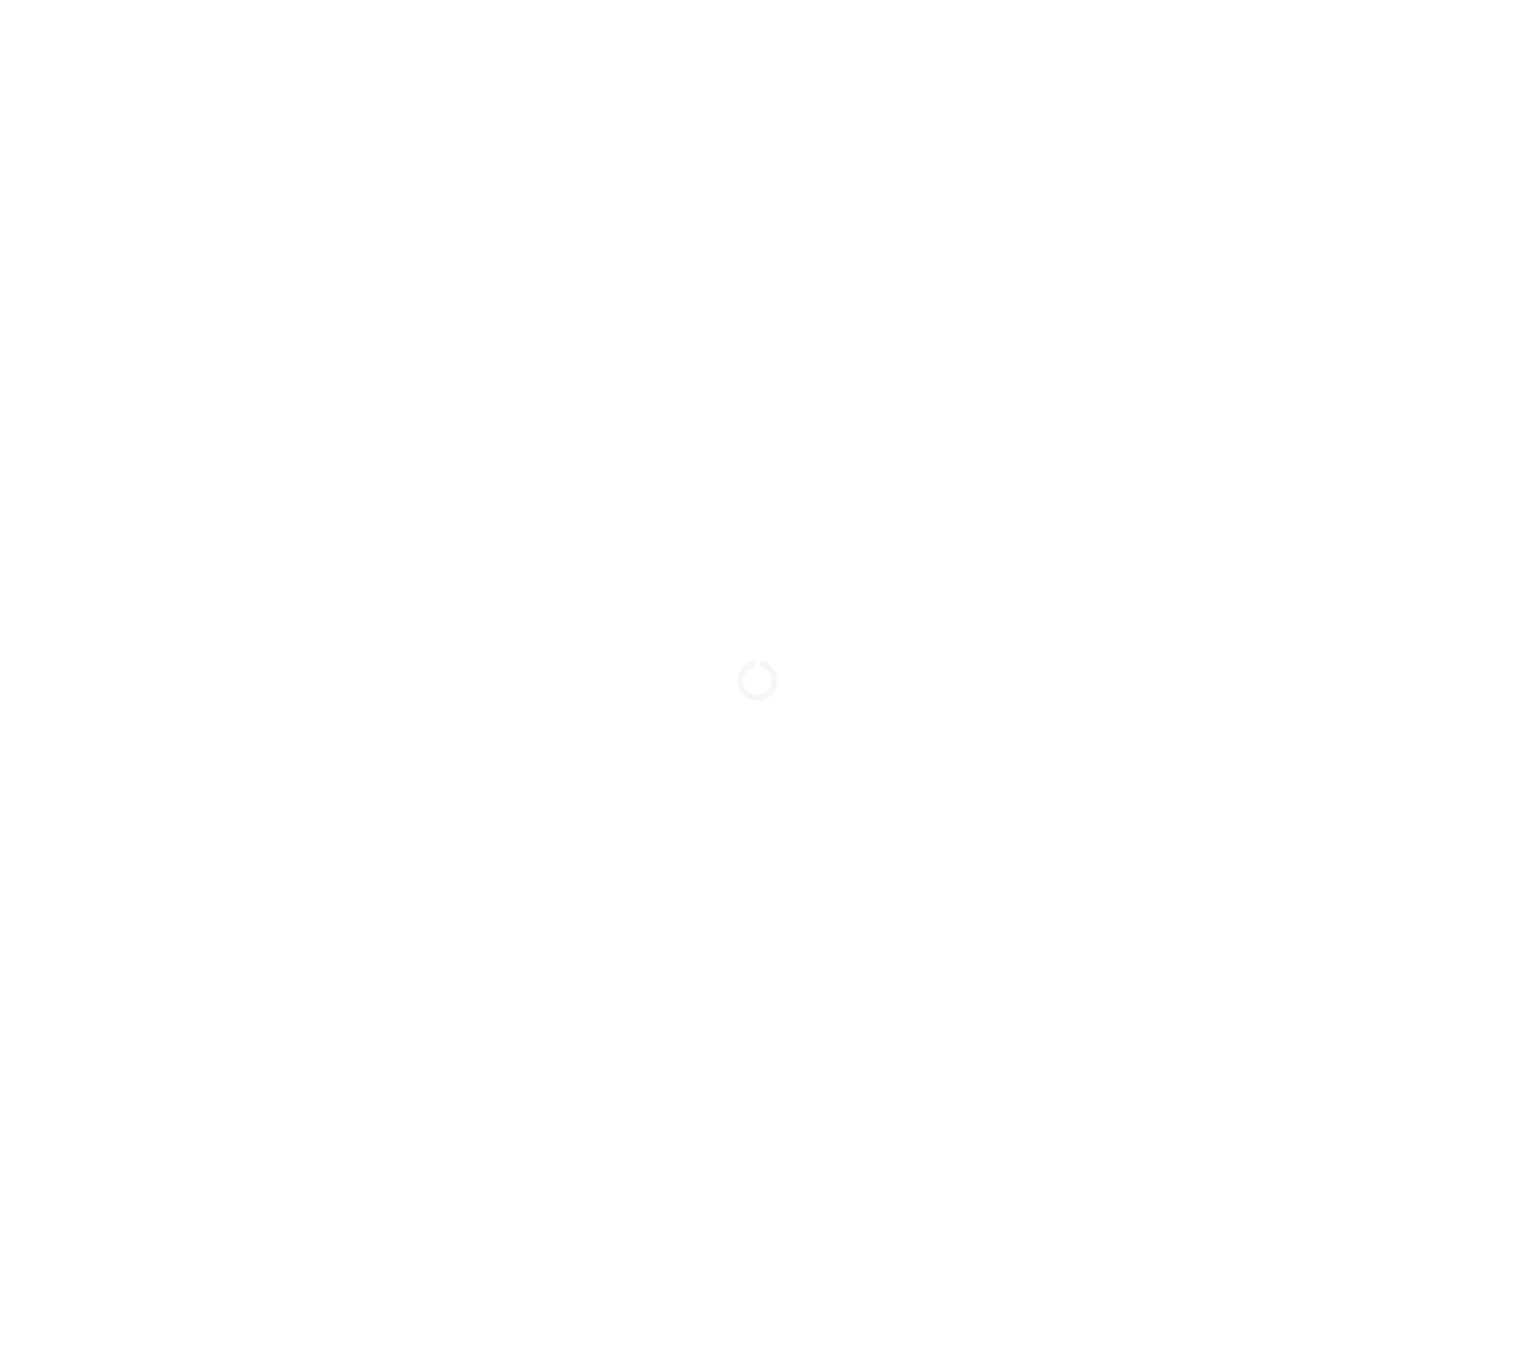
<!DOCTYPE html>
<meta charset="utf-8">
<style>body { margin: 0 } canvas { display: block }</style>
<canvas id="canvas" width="1513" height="1345"></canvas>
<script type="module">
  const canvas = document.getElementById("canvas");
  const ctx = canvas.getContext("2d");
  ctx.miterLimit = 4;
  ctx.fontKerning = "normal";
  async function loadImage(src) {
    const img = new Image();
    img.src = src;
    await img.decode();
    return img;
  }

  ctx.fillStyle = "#ffffff";
  ctx.fillRect(0, 0, 1513, 1345);
  ctx.drawImage(await loadImage("img1.png"), 737, 661, 41, 40);
</script>
